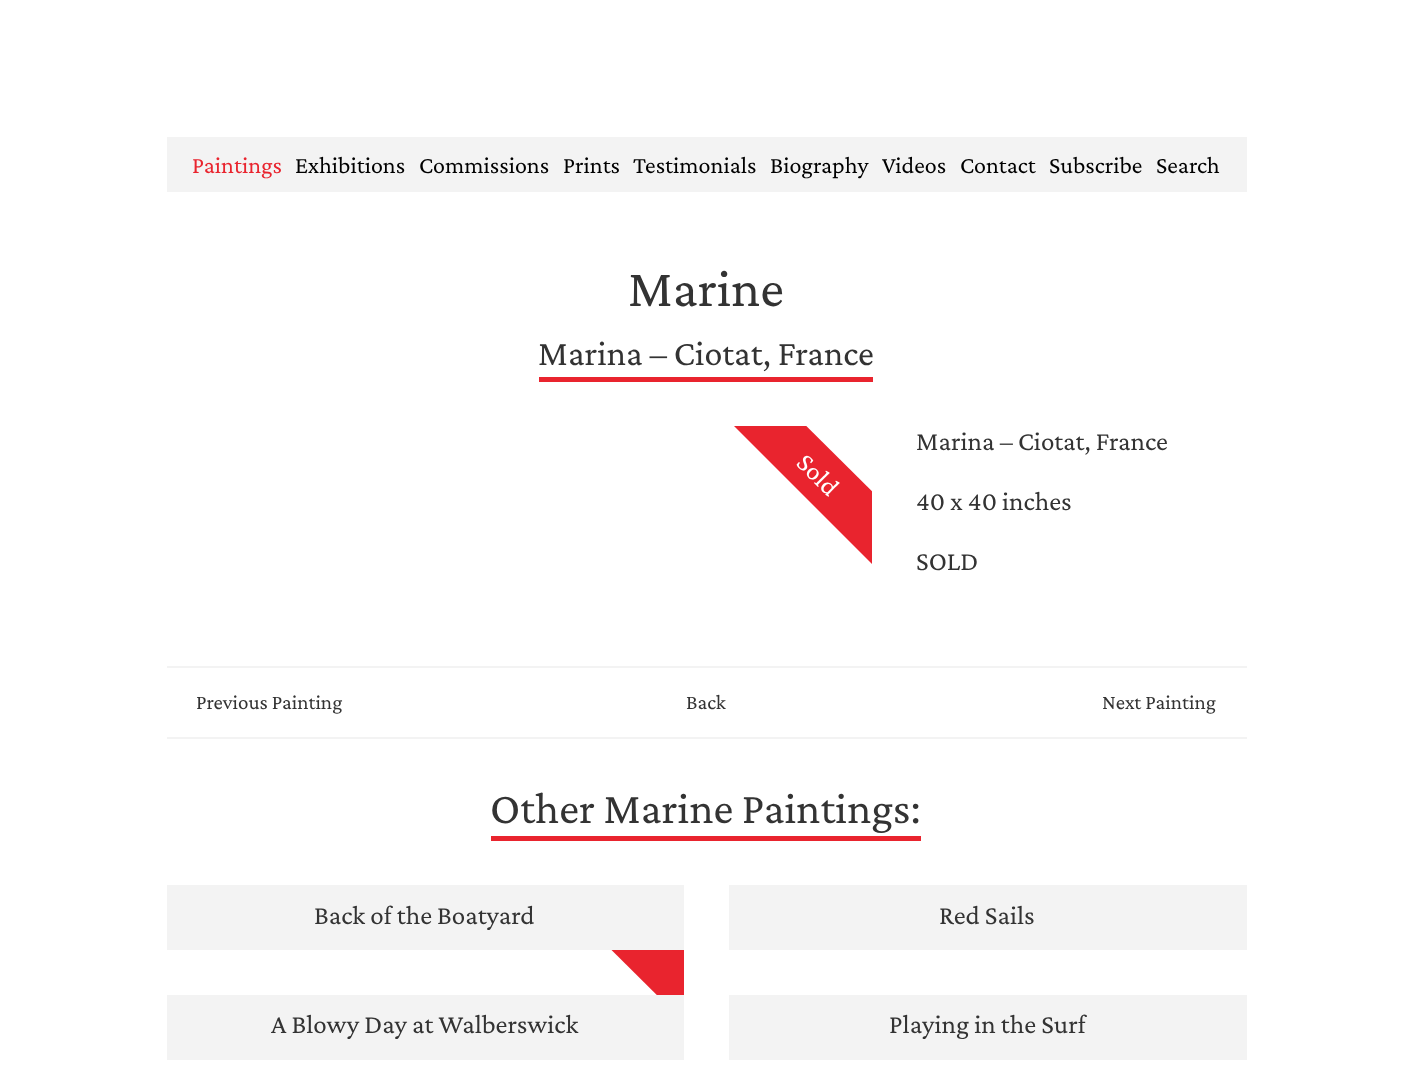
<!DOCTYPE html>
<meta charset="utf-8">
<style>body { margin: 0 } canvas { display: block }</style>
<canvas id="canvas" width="1411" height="1079"></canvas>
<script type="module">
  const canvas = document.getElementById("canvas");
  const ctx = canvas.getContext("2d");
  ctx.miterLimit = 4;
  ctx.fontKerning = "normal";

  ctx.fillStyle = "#ffffff";
  ctx.fillRect(0, 0, 1411, 1079);
  ctx.fillStyle = "#f3f3f3";
  ctx.fillRect(167, 137, 1080, 55);
  ctx.font = "24px Crimson Pro";
  ctx.fillStyle = "#e9242e";
  ctx.fillText("Paintings", 192, 173);
  ctx.fillStyle = "#000000";
  ctx.fillText("Exhibitions", 295, 173);
  ctx.fillText("Commissions", 419, 173);
  ctx.fillText("Prints", 563, 173);
  ctx.fillText("Testimonials", 633, 173);
  ctx.fillText("Biography", 770, 173);
  ctx.fillText("Videos", 882, 173);
  ctx.fillText("Contact", 960, 173);
  ctx.fillText("Subscribe", 1049, 173);
  ctx.fillText("Search", 1156, 173);
  ctx.font = "54px Crimson Pro";
  ctx.fillStyle = "#333333";
  ctx.fillText("Marine", 628, 306);
  ctx.fillStyle = "#e9242e";
  ctx.fillRect(539, 377, 334, 5);
  ctx.font = "36px Crimson Pro";
  ctx.fillStyle = "#333333";
  ctx.fillText("Marina – Ciotat, France", 538, 365);
  ctx.save();
  ctx.beginPath();
  ctx.rect(729, 426, 143, 147);
  ctx.clip();
  ctx.fillStyle = "#e9242e";
  ctx.beginPath();
  ctx.moveTo(762, 382);
  ctx.lineTo(911, 530);
  ctx.lineTo(874, 566);
  ctx.lineTo(726, 418);
  ctx.closePath();
  ctx.fill();
  ctx.restore();
  ctx.font = "27px Crimson Pro";
  ctx.fillStyle = "#ffffff";
  ctx.save();
  ctx.translate(795, 464);
  ctx.rotate(45 * Math.PI / 180);
  ctx.fillText("Sold", 0, 0);
  ctx.restore();
  ctx.fillStyle = "#333333";
  ctx.fillText("Marina – Ciotat, France", 916, 450);
  ctx.fillText("40 x 40 inches", 916, 510);
  ctx.fillText("SOLD", 916, 570);
  ctx.fillStyle = "#f3f3f3";
  ctx.fillRect(167, 666, 1080, 2);
  ctx.fillRect(167, 737, 1080, 2);
  ctx.font = "21px Crimson Pro";
  ctx.fillStyle = "#333333";
  ctx.fillText("Previous Painting", 196, 709);
  ctx.fillText("Back", 686, 709);
  ctx.fillText("Next Painting", 1102, 709);
  ctx.fillStyle = "#e9242e";
  ctx.fillRect(491, 836, 430, 5);
  ctx.font = "45px Crimson Pro";
  ctx.fillStyle = "#333333";
  ctx.fillText("Other Marine Paintings:", 490, 823);
  ctx.save();
  ctx.beginPath();
  ctx.rect(542, 885, 142, 147);
  ctx.clip();
  ctx.fillStyle = "#e9242e";
  ctx.beginPath();
  ctx.moveTo(575, 841);
  ctx.lineTo(723, 989);
  ctx.lineTo(687, 1025);
  ctx.lineTo(538, 877);
  ctx.closePath();
  ctx.fill();
  ctx.restore();
  ctx.fillStyle = "#f3f3f3";
  ctx.fillRect(167, 885, 517, 65);
  ctx.font = "27px Crimson Pro";
  ctx.fillStyle = "#333333";
  ctx.fillText("Back of the Boatyard", 314, 924);
  ctx.fillStyle = "#f3f3f3";
  ctx.fillRect(729, 885, 518, 65);
  ctx.fillStyle = "#333333";
  ctx.fillText("Red Sails", 939, 924);
  ctx.fillStyle = "#f3f3f3";
  ctx.fillRect(167, 995, 517, 65);
  ctx.fillStyle = "#333333";
  ctx.fillText("A Blowy Day at Walberswick", 271, 1033);
  ctx.fillStyle = "#f3f3f3";
  ctx.fillRect(729, 995, 518, 65);
  ctx.fillStyle = "#333333";
  ctx.fillText("Playing in the Surf", 889, 1033);
</script>
